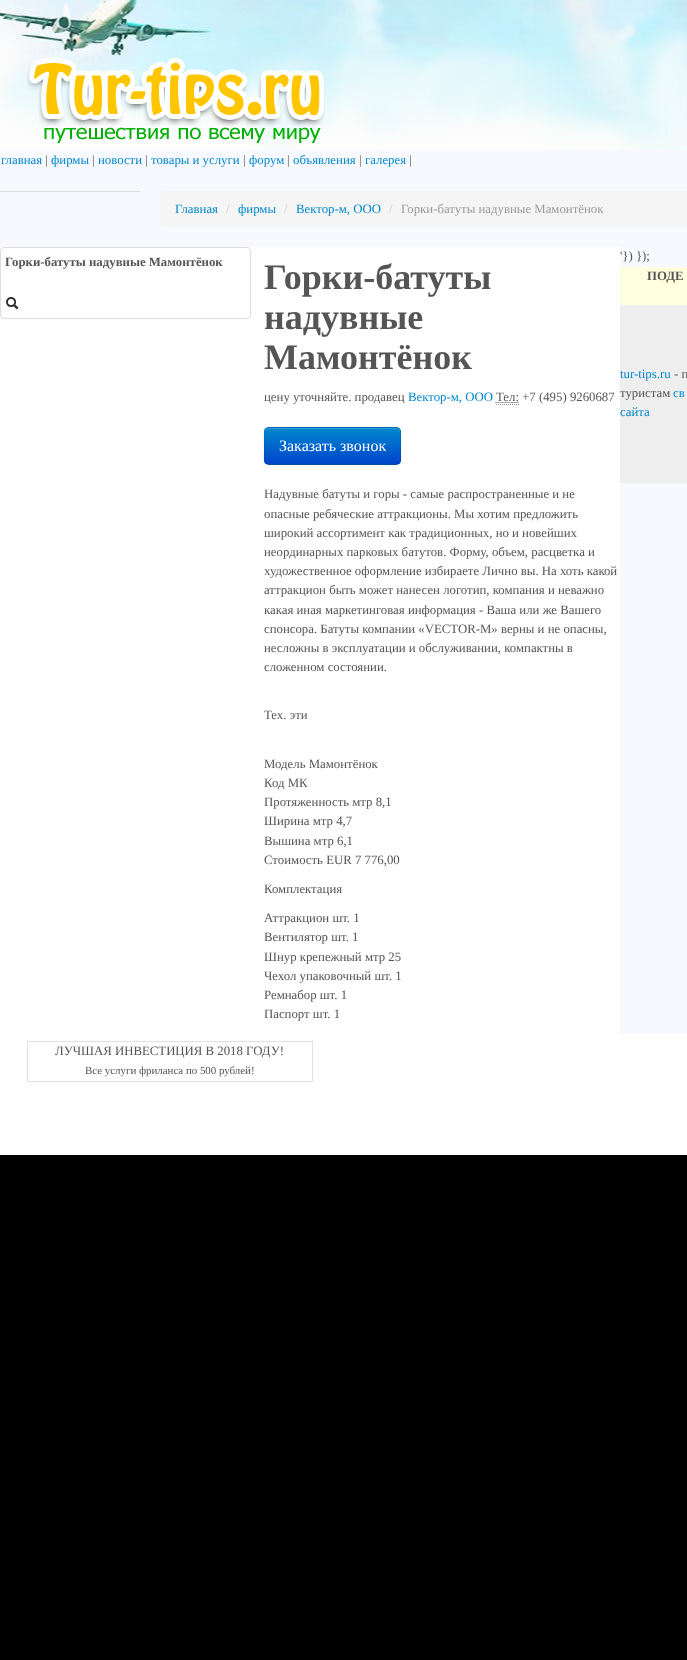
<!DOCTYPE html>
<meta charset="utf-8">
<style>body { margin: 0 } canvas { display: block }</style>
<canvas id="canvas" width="687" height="1660"></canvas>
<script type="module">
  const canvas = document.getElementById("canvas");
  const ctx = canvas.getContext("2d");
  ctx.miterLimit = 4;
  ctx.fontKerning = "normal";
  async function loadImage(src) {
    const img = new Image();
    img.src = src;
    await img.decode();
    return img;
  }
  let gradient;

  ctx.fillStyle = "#000000";
  ctx.fillRect(0, 0, 687, 1660);
  ctx.drawImage(await loadImage("img1.png"), 0, 0, 687, 1155);
  ctx.drawImage(await loadImage("img2.png"), 27, 57, 298, 86);
  ctx.fillStyle = "#f8f8ff";
  ctx.fillRect(0, 150, 687, 97);
  ctx.font = "12.8px Liberation Serif";
  ctx.fillStyle = "#0088cc";
  ctx.fillText("главная", 1, 164);
  ctx.fillStyle = "#555555";
  ctx.fillText("|", 45, 164);
  ctx.fillStyle = "#0088cc";
  ctx.fillText("фирмы", 51, 164);
  ctx.fillStyle = "#555555";
  ctx.fillText("|", 92, 164);
  ctx.fillStyle = "#0088cc";
  ctx.fillText("новости", 98, 164);
  ctx.fillStyle = "#555555";
  ctx.fillText("|", 145, 164);
  ctx.fillStyle = "#0088cc";
  ctx.fillText("товары и услуги", 151, 164);
  ctx.fillStyle = "#555555";
  ctx.fillText("|", 243, 164);
  ctx.fillStyle = "#0088cc";
  ctx.fillText("форум", 249, 164);
  ctx.fillStyle = "#555555";
  ctx.fillText("|", 287, 164);
  ctx.fillStyle = "#0088cc";
  ctx.fillText("объявления", 293, 164);
  ctx.fillStyle = "#555555";
  ctx.fillText("|", 359, 164);
  ctx.fillStyle = "#0088cc";
  ctx.fillText("галерея", 365, 164);
  ctx.fillStyle = "#555555";
  ctx.fillText("|", 409, 164);
  ctx.fillStyle = "#dcdcdc";
  ctx.fillRect(0, 191, 140, 1);
  ctx.fillStyle = "#f5f5f5";
  ctx.beginPath();
  ctx.roundRect(160, 191, 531, 36, 4);
  ctx.fill();
  ctx.fillStyle = "#0088cc";
  ctx.fillText("Главная", 175, 213);
  ctx.fillStyle = "#cccccc";
  ctx.fillText("/", 226, 213);
  ctx.fillStyle = "#0088cc";
  ctx.fillText("фирмы", 238, 213);
  ctx.fillStyle = "#cccccc";
  ctx.fillText("/", 284, 213);
  ctx.fillStyle = "#0088cc";
  ctx.fillText("Вектор-м, ООО", 296, 213);
  ctx.fillStyle = "#cccccc";
  ctx.fillText("/", 389, 213);
  ctx.fillStyle = "#999999";
  ctx.fillText("Горки-батуты надувные Мамонтёнок", 401, 213);
  ctx.fillStyle = "#f8f8ff";
  ctx.fillRect(620, 247, 67, 787);
  ctx.beginPath();
  ctx.roundRect(0.5, 247.5, 250, 71, 3.5);
  ctx.strokeStyle = "#dddddd";
  ctx.stroke();
  ctx.font = "bold 12.8px Liberation Serif";
  ctx.fillStyle = "#555555";
  ctx.fillText("Горки-батуты надувные Мамонтёнок", 5, 266);
  ctx.drawImage(await loadImage("img3.png"), 6, 297, 13, 13);
  ctx.font = "bold 36px Liberation Serif";
  ctx.fillText("Горки-батуты", 264, 289);
  ctx.fillText("надувные", 264, 329);
  ctx.fillText("Мамонтёнок", 264, 369);
  ctx.font = "12.8px Liberation Serif";
  ctx.fillText("цену уточняйте. продавец", 264, 401);
  ctx.fillStyle = "#0088cc";
  ctx.fillText("Вектор-м, ООО", 408, 401);
  ctx.beginPath();
  ctx.moveTo(495.5, 402.5);
  ctx.lineTo(518.5, 402.5);
  ctx.strokeStyle = "#555555";
  ctx.setLineDash([1, 1]);
  ctx.stroke();
  ctx.fillStyle = "#555555";
  ctx.fillText("Тел: +7 (495) 9260687", 496, 401);
  ctx.beginPath();
  ctx.moveTo(496, 404.5);
  ctx.lineTo(519, 404.5);
  ctx.strokeStyle = "#999999";
  ctx.stroke();
  ctx.fillStyle = "rgba(0, 0, 0, 0.05)";
  ctx.filter = "blur(1px)";
  ctx.beginPath();
  ctx.roundRect(264, 428, 137, 38, 5);
  ctx.fill();
  ctx.filter = "none";
  ctx.fillStyle = "#006dcc";
  ctx.beginPath();
  ctx.roundRect(264, 427, 137, 38, 5);
  ctx.fill();
  ctx.save();
  ctx.beginPath();
  ctx.roundRect(264, 427, 137, 38, 5);
  ctx.clip();
  gradient = ctx.createLinearGradient(333, 428, 333, 464);
  gradient.addColorStop(0, "#0088cc");
  gradient.addColorStop(1, "#0044cc");
  ctx.fillStyle = gradient;
  ctx.fillRect(264, 428, 137, 36);
  ctx.restore();
  ctx.fillStyle = "rgba(255, 255, 255, 0.2)";
  ctx.beginPath();
  ctx.moveTo(269, 429);
  ctx.lineTo(396, 429);
  ctx.bezierCurveTo(398, 429, 400, 431, 400, 433);
  ctx.lineTo(400, 432);
  ctx.bezierCurveTo(400, 430, 398, 428, 396, 428);
  ctx.lineTo(269, 428);
  ctx.bezierCurveTo(267, 428, 265, 430, 265, 432);
  ctx.lineTo(265, 433);
  ctx.bezierCurveTo(265, 431, 267, 429, 269, 429);
  ctx.closePath();
  ctx.fill();
  ctx.beginPath();
  ctx.moveTo(399, 463);
  ctx.lineTo(396, 464.5);
  ctx.lineTo(268.5, 464.5);
  ctx.lineTo(266, 463);
  ctx.strokeStyle = "rgba(0, 0, 0, 0.25)";
  ctx.setLineDash([]);
  ctx.stroke();
  ctx.beginPath();
  ctx.moveTo(266, 463);
  ctx.bezierCurveTo(263, 460.5, 264.5, 454, 264.5, 450.5);
  ctx.bezierCurveTo(264.5, 422.5, 260, 427.5, 290, 427.5);
  ctx.lineTo(375, 427.5);
  ctx.bezierCurveTo(405, 427.5, 400.5, 422.5, 400.5, 450.5);
  ctx.bezierCurveTo(400.5, 454, 402, 460.5, 399, 463);
  ctx.strokeStyle = "rgba(0, 0, 0, 0.1)";
  ctx.stroke();
  ctx.font = "16px Liberation Serif";
  ctx.fillStyle = "#ffffff";
  ctx.fillText("Заказать звонок", 279, 451);
  ctx.font = "12.8px Liberation Serif";
  ctx.fillStyle = "#555555";
  ctx.fillText("Надувные батуты и горы - самые распространенные и не", 264, 498);
  ctx.fillText("опасные ребяческие аттракционы. Мы хотим предложить", 264, 518);
  ctx.fillText("широкий ассортимент как традиционных, но и новейших", 264, 537);
  ctx.fillText("неординарных парковых батутов. Форму, объем, расцветка и", 264, 556);
  ctx.fillText("художественное оформление избираете Лично вы. На хоть какой", 264, 575);
  ctx.fillText("аттракцион быть может нанесен логотип, компания и неважно", 264, 594);
  ctx.fillText("какая иная маркетинговая информация - Ваша или же Вашего", 264, 614);
  ctx.fillText("спонсора. Батуты компании «VECTOR-M» верны и не опасны,", 264, 633);
  ctx.fillText("несложны в эксплуатации и обслуживании, компактны в", 264, 652);
  ctx.fillText("сложенном состоянии.", 264, 671);
  ctx.fillText("Тех. эти", 264, 719);
  ctx.fillText("Модель Мамонтёнок", 264, 768);
  ctx.fillText("Код МК", 264, 787);
  ctx.fillText("Протяженность мтр 8,1", 264, 806);
  ctx.fillText("Ширина мтр 4,7", 264, 825);
  ctx.fillText("Вышина мтр 6,1", 264, 845);
  ctx.fillText("Стоимость EUR 7 776,00", 264, 864);
  ctx.fillText("Комплектация", 264, 893);
  ctx.fillText("Аттракцион шт. 1", 264, 922);
  ctx.fillText("Вентилятор шт. 1", 264, 941);
  ctx.fillText("Шнур крепежный мтр 25", 264, 961);
  ctx.fillText("Чехол упаковочный шт. 1", 264, 980);
  ctx.fillText("Ремнабор шт. 1", 264, 999);
  ctx.fillText("Паспорт шт. 1", 264, 1018);
  ctx.fillText("'}) });", 620, 260);
  ctx.fillStyle = "#ffffe0";
  ctx.fillRect(620, 267, 67, 38);
  ctx.font = "bold 12.8px Liberation Serif";
  ctx.fillStyle = "#555555";
  ctx.fillText("ПОДЕ", 647, 280);
  ctx.fillStyle = "#eeeeee";
  ctx.fillRect(620, 305, 67, 178);
  ctx.font = "12.8px Liberation Serif";
  ctx.fillStyle = "#0088cc";
  ctx.fillText("tur-tips.ru", 620, 378);
  ctx.fillStyle = "#555555";
  ctx.fillText("- п", 674, 378);
  ctx.fillText("туристам", 620, 397);
  ctx.fillStyle = "#0088cc";
  ctx.fillText("св", 673, 397);
  ctx.fillText("сайта", 620, 416);
  ctx.strokeStyle = "#e0e0eb";
  ctx.strokeRect(27.5, 1041.5, 285, 40);
  ctx.fillStyle = "#555555";
  ctx.fillText("ЛУЧШАЯ ИНВЕСТИЦИЯ В 2018 ГОДУ!", 55, 1055);
  ctx.font = "10.9px Liberation Serif";
  ctx.fillText("Все услуги фриланса по 500 рублей!", 85, 1074);
</script>
